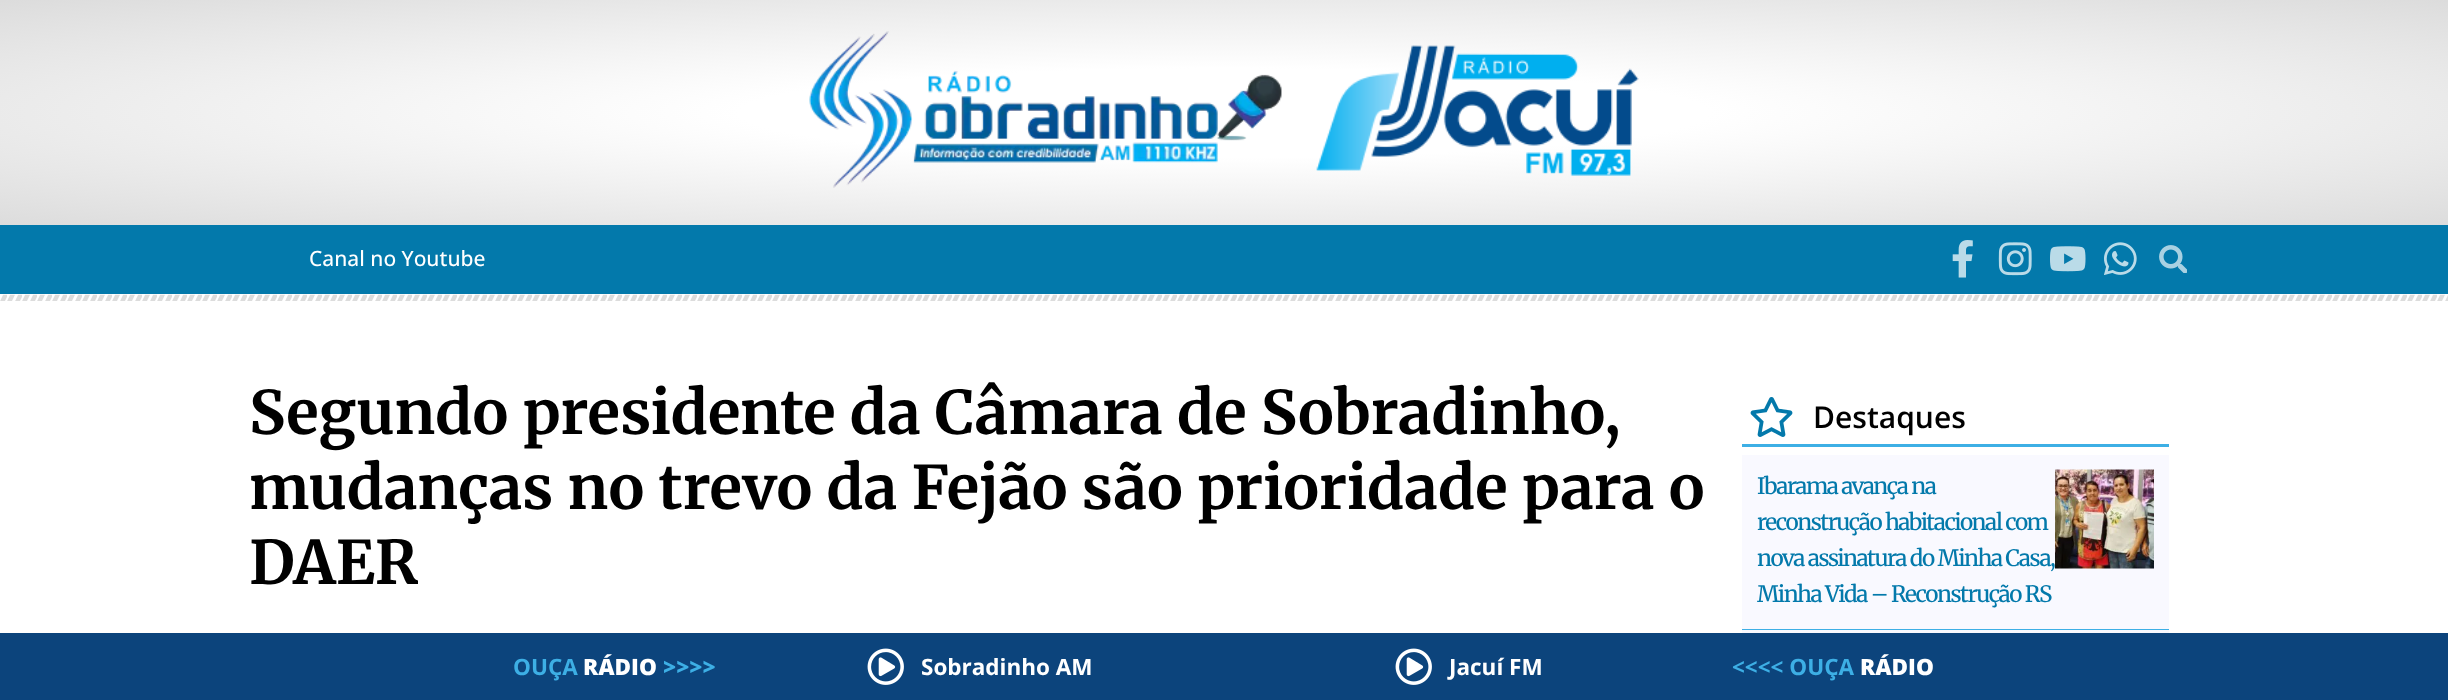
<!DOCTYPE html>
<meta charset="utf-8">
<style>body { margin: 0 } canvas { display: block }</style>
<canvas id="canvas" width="2448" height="700"></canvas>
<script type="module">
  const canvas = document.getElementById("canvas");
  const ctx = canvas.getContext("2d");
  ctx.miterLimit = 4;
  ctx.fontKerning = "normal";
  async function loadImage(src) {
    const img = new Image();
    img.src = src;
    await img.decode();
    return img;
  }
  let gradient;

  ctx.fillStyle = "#ffffff";
  ctx.fillRect(0, 0, 2448, 700);
  gradient = ctx.createRadialGradient(1224, 1230.21, 0, 1224, 1230.21, 1731);
  gradient.addColorStop(0.28, "#ffffff");
  gradient.addColorStop(1, "#dcdcdc");
  ctx.fillStyle = gradient;
  ctx.beginPath();
  ctx.rect(0, 0, 2448, 225);
  ctx.save();
  ctx.clip();
  ctx.scale(1, 159 / 1731);
  ctx.fillRect(0, 0, 2448, 7621);
  ctx.restore();
  ctx.drawImage(await loadImage("img1.png"), 809, 31, 473, 157);
  ctx.drawImage(await loadImage("img2.png"), 1316, 45, 323, 131);
  ctx.fillStyle = "#0379ab";
  ctx.fillRect(0, 225, 2448, 69);
  ctx.font = "500 21px Open Sans";
  ctx.fillStyle = "#ffffff";
  ctx.fillText("Canal no Youtube", 309, 266);
  ctx.drawImage(await loadImage("img3.png"), 1952, 240, 21, 38);
  ctx.drawImage(await loadImage("img4.png"), 1998, 242, 34, 34);
  ctx.drawImage(await loadImage("img5.png"), 2050, 246, 36, 26);
  ctx.drawImage(await loadImage("img6.png"), 2104, 242, 33, 33);
  ctx.drawImage(await loadImage("img7.png"), 2159, 245, 28, 28);
  ctx.drawImage(await loadImage("img8.png"), 0, 294, 2448, 7);
  ctx.font = "bold 60px Merriweather";
  ctx.fillStyle = "#000000";
  ctx.fillText("Segundo presidente da Câmara de Sobradinho,", 249, 434);
  ctx.fillText("mudanças no trevo da Fejão são prioridade para o", 249, 509);
  ctx.fillText("DAER", 249, 584);
  ctx.fillStyle = "#3dafe5";
  ctx.fillRect(1742, 444, 427, 3);
  ctx.drawImage(await loadImage("img9.png"), 1750, 397, 43, 40);
  ctx.font = "600 30px Open Sans";
  ctx.fillStyle = "#000000";
  ctx.fillText("Destaques", 1813, 428);
  ctx.fillStyle = "#f9f9ff";
  ctx.fillRect(1742, 455, 427, 174);
  ctx.fillStyle = "#3dafe5";
  ctx.fillRect(1742, 629, 427, 1);
  ctx.letterSpacing = "-1.5px";
  ctx.font = "500 22.5px Merriweather";
  ctx.fillStyle = "#0379ab";
  ctx.fillText("Ibarama avança na", 1757, 494);
  ctx.fillText("reconstrução habitacional com", 1757, 530);
  ctx.fillText("nova assinatura do Minha Casa,", 1757, 566);
  ctx.fillText("Minha Vida – Reconstrução RS", 1757, 602);
  ctx.drawImage(await loadImage("img10.png"), 2055, 469, 99, 100);
  ctx.fillStyle = "#f9f9ff";
  ctx.fillRect(1742, 630, 427, 3);
  ctx.fillStyle = "#0c447c";
  ctx.fillRect(0, 633, 2448, 67);
  ctx.letterSpacing = "0px";
  ctx.font = "bold 22.5px Open Sans";
  ctx.fillStyle = "#3dafe5";
  ctx.fillText("OUÇA", 513, 675);
  ctx.font = "800 22.5px Open Sans";
  ctx.fillStyle = "#ffffff";
  ctx.fillText("RÁDIO", 583, 675);
  ctx.fillStyle = "#3dafe5";
  ctx.fillText(">>>>", 663, 675);
  ctx.drawImage(await loadImage("img11.png"), 867, 648, 37, 37);
  ctx.font = "bold 22.5px Open Sans";
  ctx.fillStyle = "#ffffff";
  ctx.fillText("Sobradinho AM", 921, 675);
  ctx.drawImage(await loadImage("img11.png"), 1395, 648, 37, 37);
  ctx.fillText("Jacuí FM", 1449, 675);
  ctx.fillStyle = "#3dafe5";
  ctx.fillText("<<<< OUÇA", 1732, 675);
  ctx.font = "800 22.5px Open Sans";
  ctx.fillStyle = "#ffffff";
  ctx.fillText("RÁDIO", 1860, 675);
</script>
